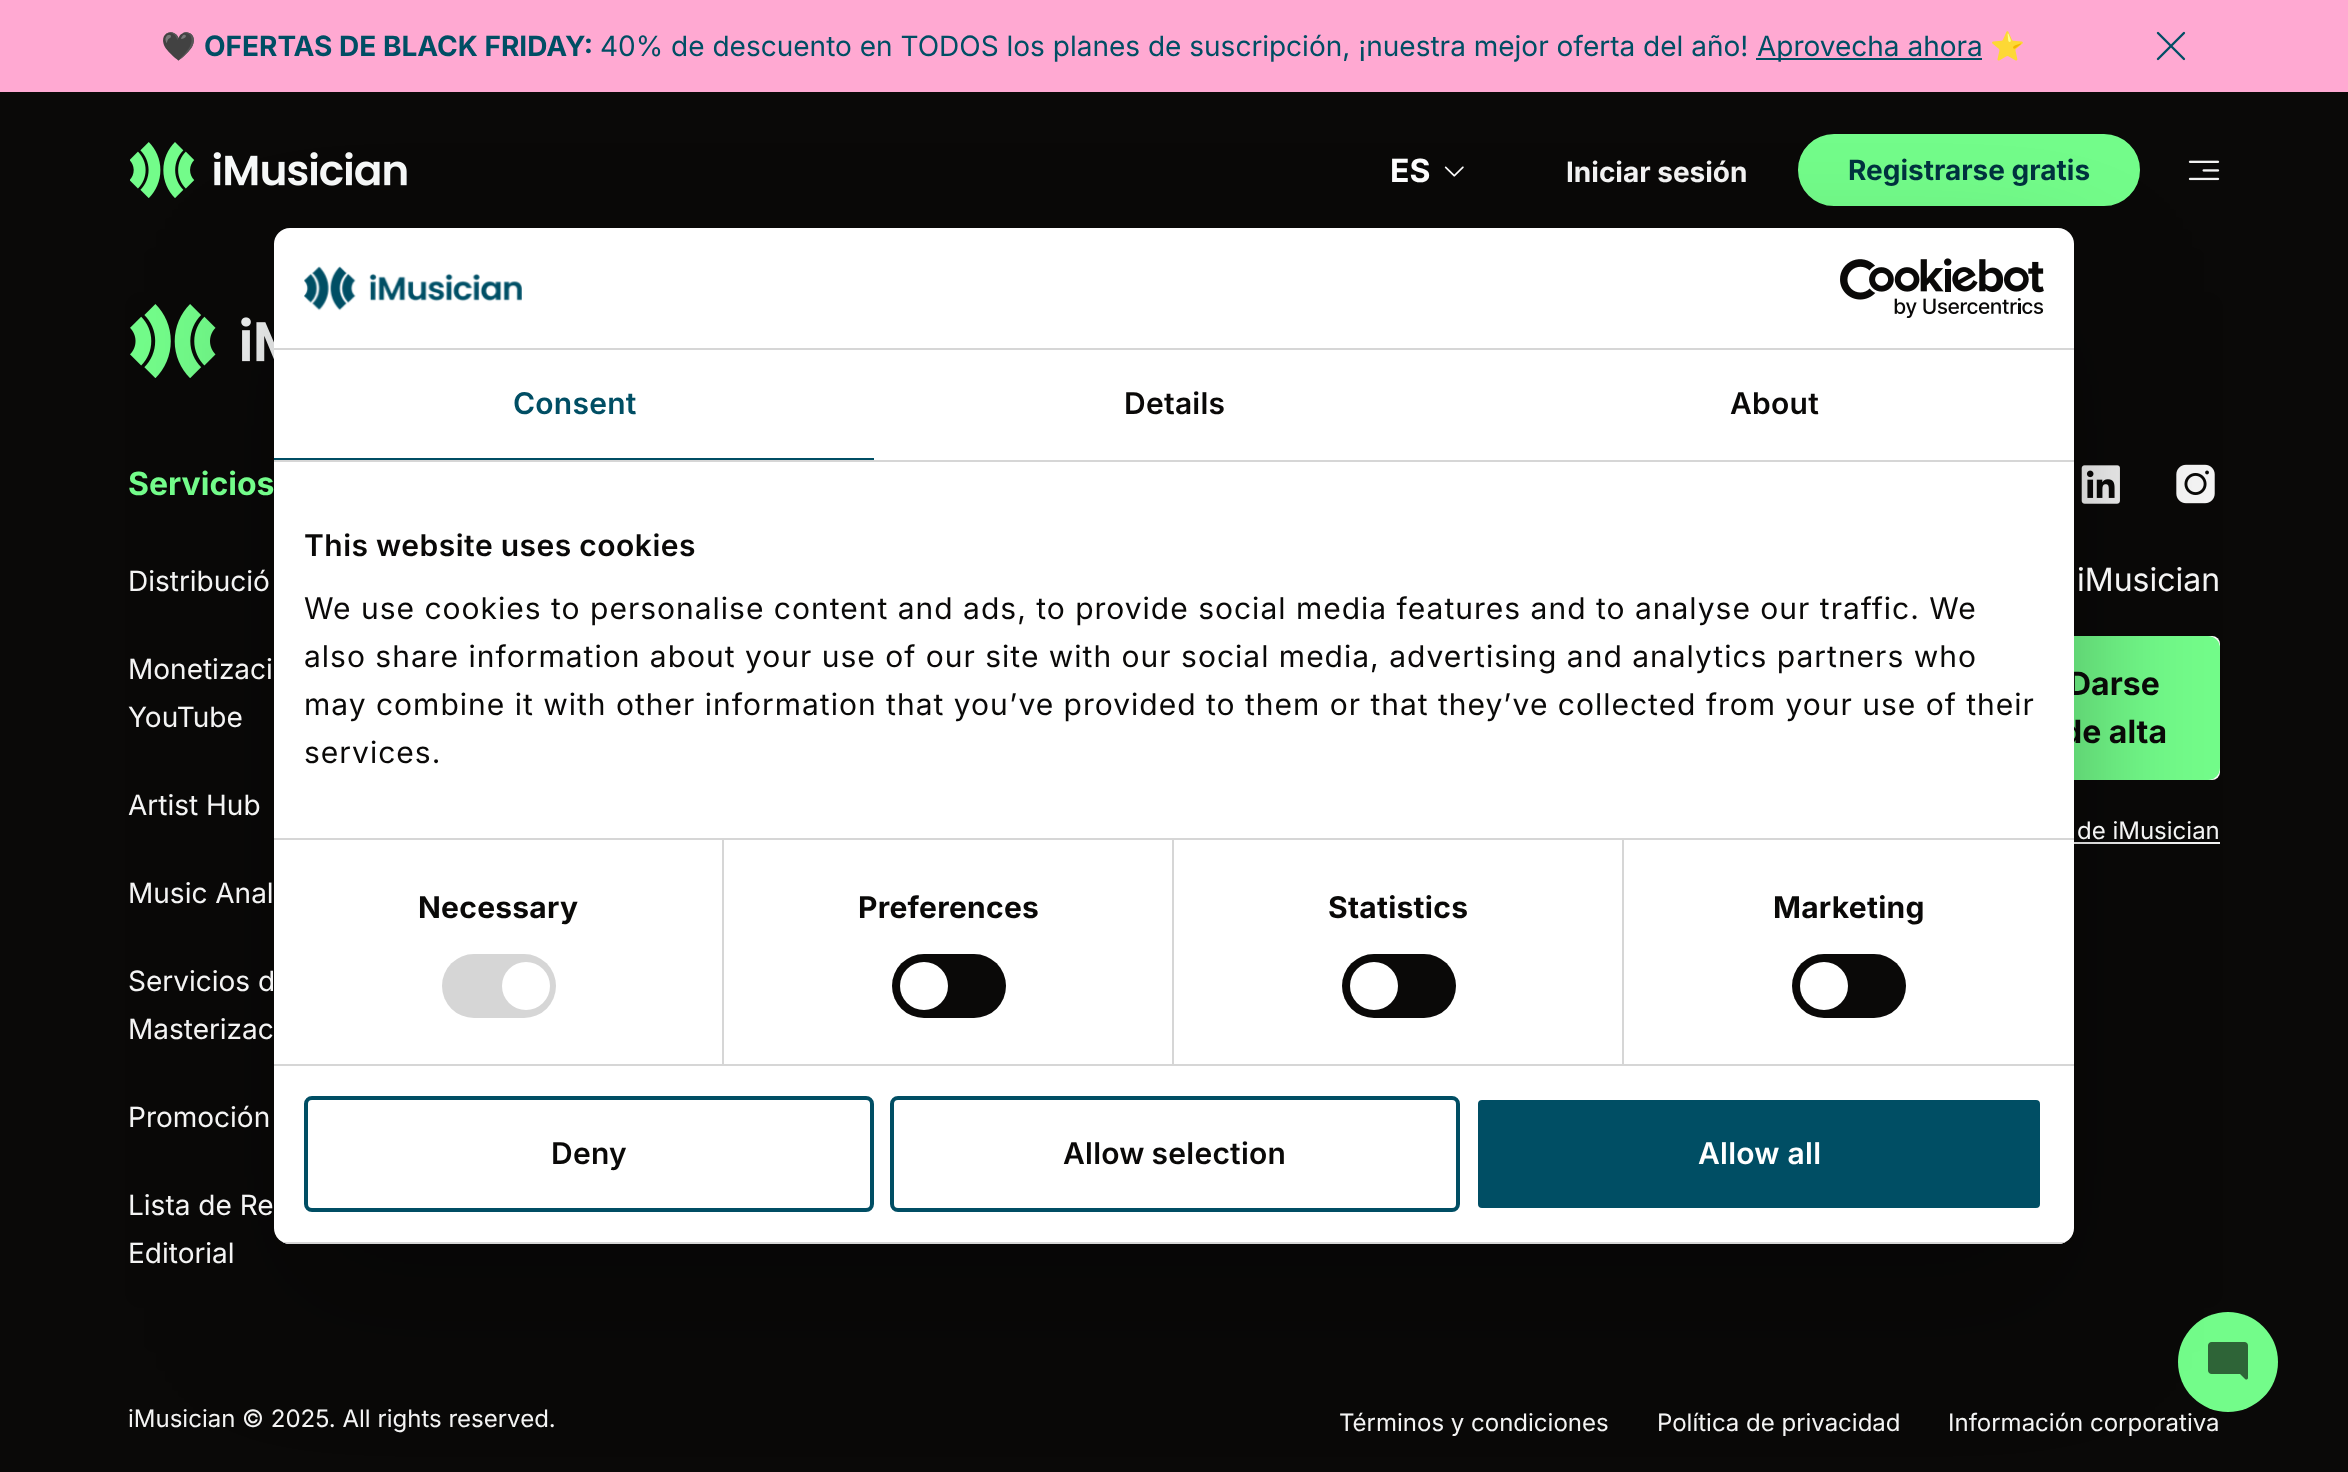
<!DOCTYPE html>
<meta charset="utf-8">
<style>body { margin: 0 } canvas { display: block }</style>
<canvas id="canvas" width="2348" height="1472"></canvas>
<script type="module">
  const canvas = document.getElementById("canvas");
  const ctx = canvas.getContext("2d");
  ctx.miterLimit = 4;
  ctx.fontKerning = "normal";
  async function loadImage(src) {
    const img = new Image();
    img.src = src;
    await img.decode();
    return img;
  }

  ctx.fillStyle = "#0a0908";
  ctx.fillRect(0, 0, 2348, 1472);
  ctx.fillStyle = "#ffa9d2";
  ctx.fillRect(0, 0, 2348, 92);
  ctx.font = "28px Noto Color Emoji";
  ctx.fillStyle = "#004e64";
  ctx.fillText("🖤", 161, 56);
  ctx.font = "bold 28px Inter";
  ctx.fillText("OFERTAS DE BLACK FRIDAY:", 204, 56);
  ctx.font = "28px Inter";
  ctx.fillText("40% de descuento en TODOS los planes de suscripción, ¡nuestra mejor oferta del año!", 600, 56);
  ctx.fillRect(1756, 58, 226, 2);
  ctx.fillText("Aprovecha ahora", 1757, 56);
  ctx.font = "28px Noto Color Emoji";
  ctx.fillText("⭐", 1990, 56);
  ctx.drawImage(await loadImage("img1.png"), 2156, 31, 30, 30);
  ctx.drawImage(await loadImage("img2.png"), 130, 142, 277, 56);
  ctx.font = "bold 32px Inter";
  ctx.fillStyle = "#ffffff";
  ctx.fillText("ES", 1390, 182);
  ctx.drawImage(await loadImage("img3.png"), 1444, 166, 20, 11);
  ctx.font = "bold 28px Inter";
  ctx.fillStyle = "#f4f4f4";
  ctx.fillText("Iniciar sesión", 1566, 182);
  ctx.fillStyle = "#73fc8a";
  ctx.beginPath();
  ctx.roundRect(1799, 135, 340, 70, 35);
  ctx.fill();
  ctx.strokeStyle = "#73fc8a";
  ctx.lineWidth = 2;
  ctx.stroke();
  ctx.fillStyle = "#01333f";
  ctx.fillText("Registrarse gratis", 1848, 180);
  ctx.drawImage(await loadImage("img4.png"), 2188, 160, 32, 21);
  ctx.drawImage(await loadImage("img7.png"), 130, 304, 144, 74);
  ctx.drawImage(await loadImage("img8.png"), 2081, 465, 39, 39);
  ctx.drawImage(await loadImage("img9.png"), 2176, 464, 39, 40);
  ctx.fillStyle = "#ffffff";
  ctx.beginPath();
  ctx.roundRect(1396, 636, 824, 144, 8);
  ctx.fill();
  ctx.fillStyle = "#73fc8a";
  ctx.beginPath();
  ctx.roundRect(2008, 636, 212, 144, [0, 12, 12, 0]);
  ctx.fill();
  ctx.fillStyle = "#f4f4f4";
  ctx.fillRect(2074, 842, 146, 2);
  ctx.fillStyle = "#73fc8a";
  ctx.beginPath();
  ctx.arc(2228, 1362, 50, 0, Math.PI * 2);
  ctx.fill();
  ctx.drawImage(await loadImage("img10.png"), 2208, 1342, 40, 38);
  ctx.fillStyle = "rgba(0, 0, 0, 0.3)";
  ctx.filter = "blur(68px)";
  ctx.beginPath();
  ctx.roundRect(274, 292, 1800, 1016, 16);
  ctx.fill();
  ctx.filter = "none";
  ctx.font = "bold 32px Inter";
  ctx.fillStyle = "#0a0908";
  ctx.fillText("Darse", 2068, 695);
  ctx.fillText("de alta", 2062, 743);
  ctx.fillStyle = "#ffffff";
  ctx.beginPath();
  ctx.roundRect(274, 228, 1800, 1016, 16);
  ctx.fill();
  ctx.fillStyle = "#d6d6d6";
  ctx.fillRect(274, 348, 1800, 2);
  ctx.drawImage(await loadImage("img5.png"), 304, 266, 218, 45);
  ctx.drawImage(await loadImage("img6.png"), 1840, 258, 204, 60);
  ctx.fillRect(274, 460, 1800, 2);
  ctx.fillStyle = "#004e64";
  ctx.fillRect(274, 458, 600, 2);
  ctx.letterSpacing = "0.25px";
  ctx.font = "600 30px Inter";
  ctx.fillText("Consent", 513, 414);
  ctx.fillStyle = "#0a0908";
  ctx.fillText("Details", 1124, 414);
  ctx.fillText("About", 1730, 414);
  ctx.fillStyle = "#d6d6d6";
  ctx.fillRect(274, 838, 1800, 2);
  ctx.letterSpacing = "0.5px";
  ctx.wordSpacing = "-0.5px";
  ctx.fillStyle = "#0a0908";
  ctx.fillText("This website uses cookies", 304, 556);
  ctx.letterSpacing = "1px";
  ctx.wordSpacing = "0px";
  ctx.font = "30px Inter";
  ctx.fillText("We use cookies to personalise content and ads, to provide social media features and to analyse our traffic. We", 304, 619);
  ctx.fillText("also share information about your use of our site with our social media, advertising and analytics partners who", 304, 667);
  ctx.fillText("may combine it with other information that you’ve provided to them or that they’ve collected from your use of their", 304, 715);
  ctx.fillText("services.", 304, 763);
  ctx.fillStyle = "#d6d6d6";
  ctx.fillRect(274, 1064, 1800, 2);
  ctx.fillRect(722, 840, 2, 224);
  ctx.letterSpacing = "0.25px";
  ctx.font = "bold 30px Inter";
  ctx.fillStyle = "#0a0908";
  ctx.fillText("Necessary", 418, 918);
  ctx.fillStyle = "#d6d6d6";
  ctx.beginPath();
  ctx.roundRect(442, 954, 114, 64, 32);
  ctx.fill();
  ctx.fillStyle = "#ffffff";
  ctx.beginPath();
  ctx.arc(526, 986, 24, 0, Math.PI * 2);
  ctx.fill();
  ctx.fillStyle = "#d6d6d6";
  ctx.fillRect(1172, 840, 2, 224);
  ctx.fillStyle = "#0a0908";
  ctx.fillText("Preferences", 858, 918);
  ctx.beginPath();
  ctx.roundRect(892, 954, 114, 64, 32);
  ctx.fill();
  ctx.fillStyle = "#ffffff";
  ctx.beginPath();
  ctx.arc(924, 986, 24, 0, Math.PI * 2);
  ctx.fill();
  ctx.fillStyle = "#d6d6d6";
  ctx.fillRect(1622, 840, 2, 224);
  ctx.fillStyle = "#0a0908";
  ctx.fillText("Statistics", 1328, 918);
  ctx.beginPath();
  ctx.roundRect(1342, 954, 114, 64, 32);
  ctx.fill();
  ctx.fillStyle = "#ffffff";
  ctx.beginPath();
  ctx.arc(1374, 986, 24, 0, Math.PI * 2);
  ctx.fill();
  ctx.fillStyle = "#0a0908";
  ctx.fillText("Marketing", 1773, 918);
  ctx.beginPath();
  ctx.roundRect(1792, 954, 114, 64, 32);
  ctx.fill();
  ctx.fillStyle = "#ffffff";
  ctx.beginPath();
  ctx.arc(1824, 986, 24, 0, Math.PI * 2);
  ctx.fill();
  ctx.save();
  ctx.beginPath();
  ctx.roundRect(274, 228, 1800, 1016, 16);
  ctx.clip();
  ctx.fillStyle = "#d6d6d6";
  ctx.fillRect(274, 1242, 1800, 2);
  ctx.restore();
  ctx.beginPath();
  ctx.roundRect(306, 1098, 566, 112, 6);
  ctx.strokeStyle = "#004e64";
  ctx.lineWidth = 4;
  ctx.stroke();
  ctx.font = "600 30px Inter";
  ctx.fillStyle = "#0a0908";
  ctx.fillText("Deny", 551, 1164);
  ctx.beginPath();
  ctx.roundRect(892, 1098, 566, 112, 6);
  ctx.stroke();
  ctx.wordSpacing = "-1px";
  ctx.fillText("Allow selection", 1063, 1164);
  ctx.fillStyle = "#004e64";
  ctx.beginPath();
  ctx.roundRect(1476, 1098, 566, 112, 6);
  ctx.fill();
  ctx.strokeStyle = "#ffffff";
  ctx.stroke();
  ctx.wordSpacing = "0px";
  ctx.fillStyle = "#ffffff";
  ctx.fillText("Allow all", 1698, 1164);
  ctx.letterSpacing = "0px";
  ctx.font = "bold 32px Inter";
  ctx.fillStyle = "#73fc8a";
  ctx.fillText("Servicios", 128, 495);
  ctx.font = "28px Inter";
  ctx.fillStyle = "#f4f4f4";
  ctx.fillText("Distribució", 128, 591);
  ctx.fillText("Monetizaci", 128, 679);
  ctx.fillText("YouTube", 128, 727);
  ctx.fillText("Artist Hub", 128, 815);
  ctx.fillText("Music Anal", 128, 903);
  ctx.fillText("Servicios d", 128, 991);
  ctx.fillText("Masterizac", 128, 1039);
  ctx.fillText("Promoción", 128, 1127);
  ctx.fillText("Lista de Re", 128, 1215);
  ctx.fillText("Editorial", 128, 1263);
  ctx.font = "32px Inter";
  ctx.fillText("iMusician", 2077, 591);
  ctx.font = "24px Inter";
  ctx.fillText("de iMusician", 2077, 839);
  ctx.fillText("iMusician © 2025. All rights reserved.", 128, 1427);
  ctx.fillText("Términos y condiciones", 1339, 1431);
  ctx.fillText("Política de privacidad", 1657, 1431);
  ctx.fillText("Información corporativa", 1948, 1431);
</script>
